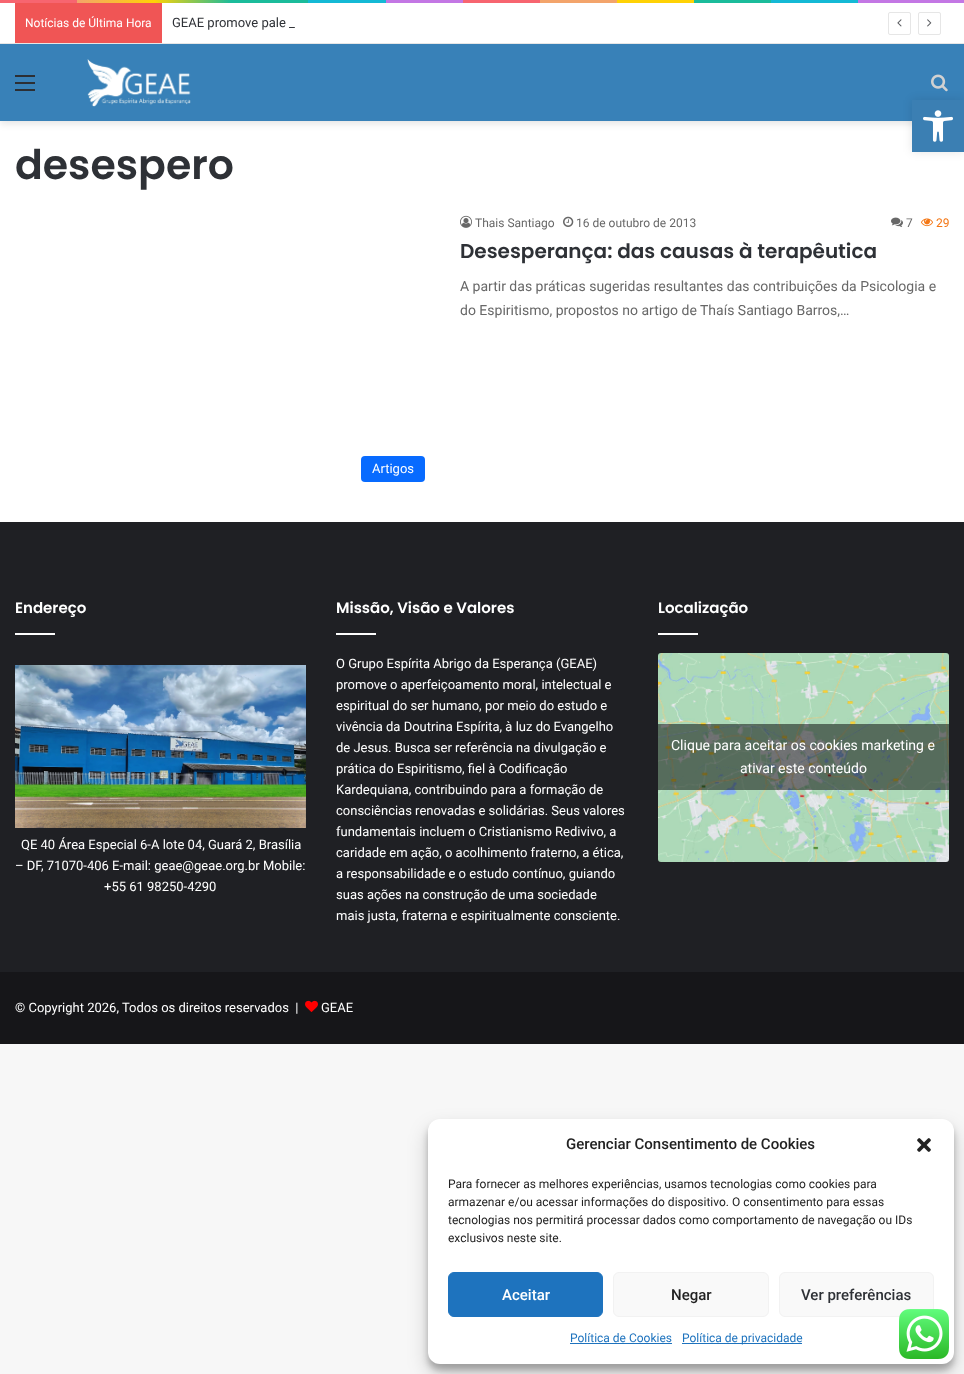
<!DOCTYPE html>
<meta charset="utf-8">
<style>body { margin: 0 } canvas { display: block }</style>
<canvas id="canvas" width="964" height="1374"></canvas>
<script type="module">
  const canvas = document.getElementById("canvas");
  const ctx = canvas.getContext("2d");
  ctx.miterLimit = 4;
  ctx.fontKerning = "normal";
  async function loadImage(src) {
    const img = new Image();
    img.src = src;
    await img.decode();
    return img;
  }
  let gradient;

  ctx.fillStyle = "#f7f7f7";
  ctx.fillRect(0, 0, 964, 1374);
  ctx.fillStyle = "#ffffff";
  ctx.fillRect(0, 121, 964, 401);
  gradient = ctx.createLinearGradient(0, 1.5, 964, 1.5);
  gradient.addColorStop(0, "#f76570");
  gradient.addColorStop(0.08, "#f76570");
  gradient.addColorStop(0.08, "#f3a46b");
  gradient.addColorStop(0.16, "#ffd205");
  gradient.addColorStop(0.24, "#1bbc9b");
  gradient.addColorStop(0.32, "#1bbc9b");
  gradient.addColorStop(0.32, "#14b9d5");
  gradient.addColorStop(0.4, "#14b9d5");
  gradient.addColorStop(0.4, "#c377e4");
  gradient.addColorStop(0.48, "#c377e4");
  gradient.addColorStop(0.48, "#f76570");
  gradient.addColorStop(0.56, "#f76570");
  gradient.addColorStop(0.56, "#f3a46b");
  gradient.addColorStop(0.64, "#f3a46b");
  gradient.addColorStop(0.64, "#ffd205");
  gradient.addColorStop(0.72, "#ffd205");
  gradient.addColorStop(0.72, "#1bbc9b");
  gradient.addColorStop(0.8, "#1bbc9b");
  gradient.addColorStop(0.8, "#14b9d5");
  gradient.addColorStop(0.89, "#14b9d5");
  gradient.addColorStop(0.89, "#c377e4");
  gradient.addColorStop(1, "#c377e4");
  ctx.fillStyle = gradient;
  ctx.fillRect(0, 0, 964, 3);
  ctx.fillStyle = "rgba(0, 0, 0, 0.1)";
  ctx.filter = "blur(3.5px)";
  ctx.beginPath();
  ctx.rect(0, 47, 964, 77);
  ctx.fill();
  ctx.filter = "none";
  ctx.fillStyle = "#ffffff";
  ctx.fillRect(0, 3, 964, 40);
  ctx.fillStyle = "#e6e6e6";
  ctx.fillRect(0, 43, 964, 1);
  ctx.fillStyle = "#f05555";
  ctx.fillRect(15, 3, 147, 40);
  ctx.font = "12px Roboto";
  ctx.fillStyle = "#ffffff";
  ctx.fillText("Notícias de Última Hora", 25, 27);
  ctx.font = "13px Roboto";
  ctx.fillStyle = "#2e3136";
  ctx.fillText("GEAE promove pale _", 172, 27);
  ctx.beginPath();
  ctx.roundRect(888.5, 12.5, 22, 22, 1.5);
  ctx.strokeStyle = "#e6e6e6";
  ctx.stroke();
  ctx.drawImage(await loadImage("img1.png"), 897, 19, 5, 8);
  ctx.beginPath();
  ctx.roundRect(918.5, 12.5, 22, 22, 1.5);
  ctx.stroke();
  ctx.drawImage(await loadImage("img2.png"), 927, 19, 5, 8);
  ctx.fillStyle = "#3881b8";
  ctx.fillRect(0, 44, 964, 77);
  ctx.fillStyle = "#2c2f34";
  ctx.fillRect(15, 82, 20, 2);
  ctx.fillRect(15, 75, 20, 2);
  ctx.fillRect(15, 89, 20, 2);
  ctx.drawImage(await loadImage("img3.png"), 87, 59, 104, 48);
  ctx.drawImage(await loadImage("img4.png"), 931, 74, 17, 18);
  ctx.font = "600 41px Poppins";
  ctx.fillStyle = "#2e3136";
  ctx.fillText("desespero", 15, 179);
  ctx.drawImage(await loadImage("img5.png"), 460, 215, 12, 13);
  ctx.font = "12px Roboto";
  ctx.fillStyle = "#686868";
  ctx.fillText("Thais Santiago", 475, 227);
  ctx.drawImage(await loadImage("img6.png"), 563, 216, 11, 11);
  ctx.fillText("16 de outubro de 2013", 576, 227);
  ctx.drawImage(await loadImage("img7.png"), 891, 217, 12, 10);
  ctx.fillText("7", 906, 227);
  ctx.drawImage(await loadImage("img8.png"), 921, 218, 12, 9);
  ctx.fillStyle = "#f47614";
  ctx.fillText("29", 936, 227);
  ctx.font = "600 20px Poppins";
  ctx.fillStyle = "#2e3136";
  ctx.fillText("Desesperança: das causas à terapêutica", 460, 258);
  ctx.font = "14px Roboto";
  ctx.fillStyle = "#686868";
  ctx.fillText("A partir das práticas sugeridas resultantes das contribuições da Psicologia e", 460, 291);
  ctx.fillText("do Espiritismo, propostos no artigo de Thaís Santiago Barros,…", 460, 315);
  ctx.fillStyle = "#086bff";
  ctx.beginPath();
  ctx.roundRect(361, 456, 64, 26, 4);
  ctx.fill();
  ctx.font = "13px Roboto";
  ctx.fillStyle = "#ffffff";
  ctx.fillText("Artigos", 372, 473);
  ctx.fillStyle = "#1f2024";
  ctx.fillRect(0, 522, 964, 450);
  ctx.font = "600 15px Poppins";
  ctx.fillStyle = "#ffffff";
  ctx.fillText("Endereço", 15, 613);
  ctx.fillStyle = "#fdfdfd";
  ctx.fillRect(15, 633, 40, 2);
  ctx.drawImage(await loadImage("img9.png"), 15, 665, 291, 163);
  ctx.font = "13px Roboto";
  ctx.fillStyle = "#ffffff";
  ctx.fillText("QE 40 Área Especial 6-A lote 04, Guará 2, Brasília", 21, 849);
  ctx.fillText("– DF, 71070-406 E-mail: geae@geae.org.br Mobile:", 15, 870);
  ctx.fillText("+55 61 98250-4290", 104, 891);
  ctx.font = "600 15px Poppins";
  ctx.fillText("Missão, Visão e Valores", 336, 613);
  ctx.fillStyle = "#fdfdfd";
  ctx.fillRect(336, 633, 40, 2);
  ctx.font = "13px Roboto";
  ctx.fillStyle = "#ffffff";
  ctx.fillText("O Grupo Espírita Abrigo da Esperança (GEAE)", 336, 668);
  ctx.fillText("promove o aperfeiçoamento moral, intelectual e", 336, 689);
  ctx.fillText("espiritual do ser humano, por meio do estudo e", 336, 710);
  ctx.fillText("vivência da Doutrina Espírita, à luz do Evangelho", 336, 731);
  ctx.fillText("de Jesus. Busca ser referência na divulgação e", 336, 752);
  ctx.fillText("prática do Espiritismo, fiel à Codificação", 336, 773);
  ctx.fillText("Kardequiana, contribuindo para a formação de", 336, 794);
  ctx.fillText("consciências renovadas e solidárias. Seus valores", 336, 815);
  ctx.fillText("fundamentais incluem o Cristianismo Redivivo, a", 336, 836);
  ctx.fillText("caridade em ação, o acolhimento fraterno, a ética,", 336, 857);
  ctx.fillText("a responsabilidade e o estudo contínuo, guiando", 336, 878);
  ctx.fillText("suas ações na construção de uma sociedade", 336, 899);
  ctx.fillText("mais justa, fraterna e espiritualmente consciente.", 336, 920);
  ctx.font = "600 15px Poppins";
  ctx.fillText("Localização", 658, 613);
  ctx.fillStyle = "#fdfdfd";
  ctx.fillRect(658, 633, 40, 2);
  ctx.drawImage(await loadImage("img10.png"), 658, 653, 291, 209);
  ctx.fillStyle = "rgba(0, 0, 0, 0.5)";
  ctx.fillRect(658, 724, 291, 66);
  ctx.font = "14px Roboto";
  ctx.fillStyle = "#ffffff";
  ctx.fillText("Clique para aceitar os cookies marketing e", 671, 750);
  ctx.fillText("ativar este conteúdo", 740, 773);
  ctx.fillStyle = "#161619";
  ctx.fillRect(0, 972, 964, 72);
  ctx.font = "13px Roboto";
  ctx.fillStyle = "#ffffff";
  ctx.fillText("© Copyright 2026, Todos os direitos reservados  |", 15, 1012);
  ctx.drawImage(await loadImage("img11.png"), 305, 1000, 13, 12);
  ctx.fillText("GEAE", 321, 1012);
  ctx.fillStyle = "rgba(0, 0, 0, 0.1)";
  ctx.filter = "blur(5px)";
  ctx.beginPath();
  ctx.rect(912, 100, 52, 52);
  ctx.fill();
  ctx.filter = "none";
  ctx.fillStyle = "#3b7fb3";
  ctx.fillRect(912, 100, 52, 52);
  ctx.drawImage(await loadImage("img12.png"), 923, 110, 30, 32);
  ctx.fillStyle = "rgba(0, 0, 0, 0.23)";
  ctx.filter = "blur(3px)";
  ctx.beginPath();
  ctx.roundRect(428, 1125, 526, 245, 12);
  ctx.fill();
  ctx.filter = "none";
  ctx.fillStyle = "rgba(0, 0, 0, 0.19)";
  ctx.filter = "blur(10px)";
  ctx.beginPath();
  ctx.roundRect(428, 1129, 526, 245, 12);
  ctx.fill();
  ctx.filter = "none";
  ctx.fillStyle = "#ffffff";
  ctx.beginPath();
  ctx.roundRect(428, 1119, 526, 245, 12);
  ctx.fill();
  ctx.font = "500 15px Roboto";
  ctx.fillStyle = "#222222";
  ctx.fillText("Gerenciar Consentimento de Cookies", 566, 1149);
  ctx.drawImage(await loadImage("img13.png"), 917, 1138, 14, 14);
  ctx.font = "12px Roboto";
  ctx.fillText("Para fornecer as melhores experiências, usamos tecnologias como cookies para", 448, 1188);
  ctx.fillText("armazenar e/ou acessar informações do dispositivo. O consentimento para essas", 448, 1206);
  ctx.fillText("tecnologias nos permitirá processar dados como comportamento de navegação ou IDs", 448, 1224);
  ctx.fillText("exclusivos neste site.", 448, 1242);
  ctx.fillStyle = "#1e73be";
  ctx.beginPath();
  ctx.roundRect(448.5, 1272.5, 154, 44, 5.5);
  ctx.fill();
  ctx.strokeStyle = "#1e73be";
  ctx.stroke();
  ctx.font = "500 15px Roboto";
  ctx.fillStyle = "#ffffff";
  ctx.fillText("Aceitar", 502, 1300);
  ctx.fillStyle = "#f9f9f9";
  ctx.beginPath();
  ctx.roundRect(613.5, 1272.5, 155, 44, 5.5);
  ctx.fill();
  ctx.strokeStyle = "#f2f2f2";
  ctx.stroke();
  ctx.fillStyle = "#222222";
  ctx.fillText("Negar", 671, 1300);
  ctx.fillStyle = "#f9f9f9";
  ctx.beginPath();
  ctx.roundRect(779.5, 1272.5, 154, 44, 5.5);
  ctx.fill();
  ctx.stroke();
  ctx.fillStyle = "#2e3136";
  ctx.fillText("Ver preferências", 801, 1300);
  ctx.font = "12px Roboto";
  ctx.fillStyle = "#1e73be";
  ctx.fillText("Política de Cookies", 570, 1342);
  ctx.fillRect(570, 1343, 102, 1);
  ctx.fillRect(682, 1343, 120, 1);
  ctx.fillText("Política de privacidade", 682, 1342);
  ctx.drawImage(await loadImage("img14.png"), 899, 1309, 50, 50);
</script>
